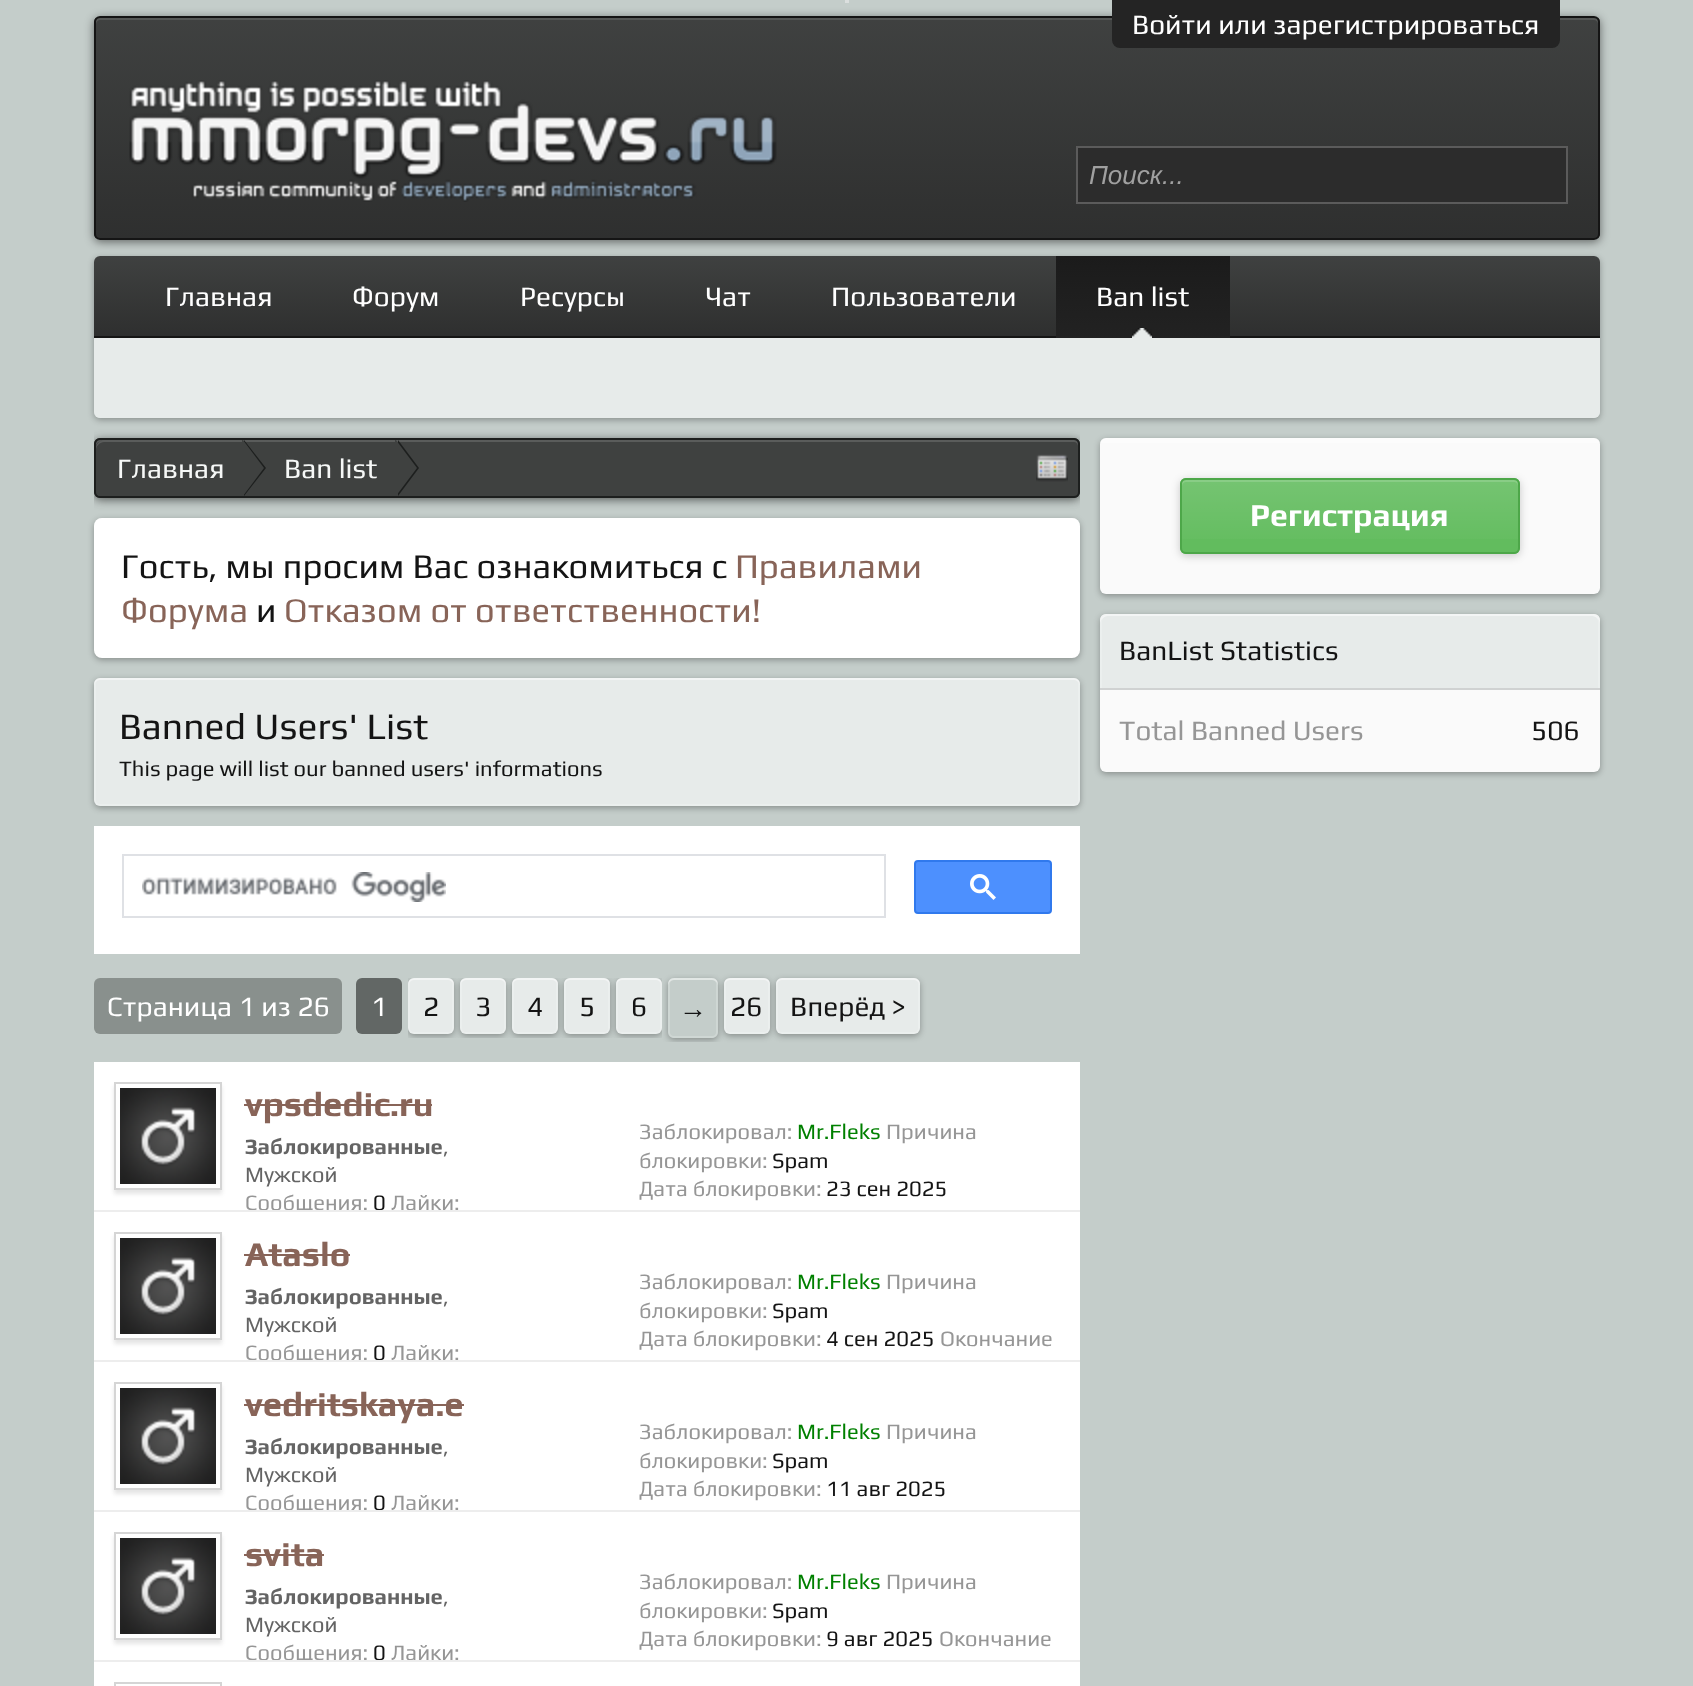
<!DOCTYPE html>
<meta charset="utf-8">
<style>body { margin: 0 } canvas { display: block }</style>
<canvas id="canvas" width="1693" height="1686"></canvas>
<script type="module">
  const canvas = document.getElementById("canvas");
  const ctx = canvas.getContext("2d");
  ctx.miterLimit = 4;
  ctx.fontKerning = "normal";
  async function loadImage(src) {
    const img = new Image();
    img.src = src;
    await img.decode();
    return img;
  }
  let gradient;

  ctx.fillStyle = "#c4cdca";
  ctx.fillRect(0, 0, 1693, 1686);
  ctx.fillStyle = "#dbdfde";
  ctx.fillRect(845, 0, 4, 3);
  ctx.save();
  ctx.beginPath();
  ctx.moveTo(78, 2);
  ctx.lineTo(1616, 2);
  ctx.lineTo(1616, 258);
  ctx.lineTo(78, 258);
  ctx.closePath();
  ctx.moveTo(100, 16);
  ctx.lineTo(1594, 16);
  ctx.bezierCurveTo(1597.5, 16, 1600, 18.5, 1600, 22);
  ctx.lineTo(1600, 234);
  ctx.bezierCurveTo(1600, 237.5, 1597.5, 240, 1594, 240);
  ctx.lineTo(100, 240);
  ctx.bezierCurveTo(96.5, 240, 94, 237.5, 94, 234);
  ctx.lineTo(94, 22);
  ctx.bezierCurveTo(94, 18.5, 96.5, 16, 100, 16);
  ctx.closePath();
  ctx.clip("evenodd");
  ctx.fillStyle = "rgba(0, 0, 0, 0.5)";
  ctx.filter = "blur(5px)";
  ctx.beginPath();
  ctx.roundRect(94, 18, 1506, 224, 6);
  ctx.fill();
  ctx.filter = "none";
  ctx.restore();
  ctx.save();
  ctx.beginPath();
  ctx.roundRect(94, 16, 1506, 224, 6);
  ctx.clip();
  gradient = ctx.createLinearGradient(847, 18, 847, 238);
  gradient.addColorStop(0, "rgba(30, 30, 30, 0.8)");
  gradient.addColorStop(1, "rgba(30, 30, 30, 0.9)");
  ctx.fillStyle = gradient;
  ctx.fillRect(94, 18, 1506, 220);
  ctx.restore();
  ctx.fillStyle = "#565857";
  ctx.beginPath();
  ctx.moveTo(100, 20);
  ctx.lineTo(1594, 20);
  ctx.bezierCurveTo(1596, 20, 1598, 22, 1598, 24);
  ctx.bezierCurveTo(1598, 21, 1598, 18, 1594, 18);
  ctx.lineTo(100, 18);
  ctx.bezierCurveTo(96, 18, 96, 21, 96, 24);
  ctx.bezierCurveTo(96, 22, 98, 20, 100, 20);
  ctx.closePath();
  ctx.fill();
  ctx.beginPath();
  ctx.roundRect(95, 17, 1504, 222, 5);
  ctx.strokeStyle = "#151515";
  ctx.lineWidth = 2;
  ctx.stroke();
  ctx.fillStyle = "#242424";
  ctx.beginPath();
  ctx.roundRect(1112, 0, 448, 48, [0, 0, 8, 8]);
  ctx.fill();
  ctx.font = "28px Play";
  ctx.fillStyle = "#ffffff";
  ctx.fillText("Войти или зарегистрироваться", 1132, 34);
  ctx.drawImage(await loadImage("img1.png"), 129, 80, 648, 122);
  ctx.fillStyle = "#2c2c2c";
  ctx.beginPath();
  ctx.rect(1077, 147, 490, 56);
  ctx.fill();
  ctx.strokeStyle = "#5b5b5b";
  ctx.stroke();
  ctx.font = "italic 26px Liberation Sans";
  ctx.fillStyle = "#a0a0a0";
  ctx.fillText("Поиск...", 1089, 184);
  ctx.save();
  ctx.beginPath();
  ctx.moveTo(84, 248);
  ctx.lineTo(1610, 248);
  ctx.lineTo(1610, 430);
  ctx.lineTo(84, 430);
  ctx.closePath();
  ctx.moveTo(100, 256);
  ctx.lineTo(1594, 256);
  ctx.bezierCurveTo(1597.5, 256, 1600, 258.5, 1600, 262);
  ctx.lineTo(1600, 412);
  ctx.bezierCurveTo(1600, 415.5, 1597.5, 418, 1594, 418);
  ctx.lineTo(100, 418);
  ctx.bezierCurveTo(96.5, 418, 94, 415.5, 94, 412);
  ctx.lineTo(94, 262);
  ctx.bezierCurveTo(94, 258.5, 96.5, 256, 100, 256);
  ctx.closePath();
  ctx.clip("evenodd");
  ctx.fillStyle = "rgba(0, 0, 0, 0.3)";
  ctx.filter = "blur(3px)";
  ctx.beginPath();
  ctx.roundRect(94, 258, 1506, 162, 6);
  ctx.fill();
  ctx.filter = "none";
  ctx.restore();
  gradient = ctx.createLinearGradient(847, 256, 847, 336);
  gradient.addColorStop(0, "rgba(30, 30, 30, 0.8)");
  gradient.addColorStop(1, "rgba(30, 30, 30, 0.9)");
  ctx.fillStyle = gradient;
  ctx.beginPath();
  ctx.roundRect(94, 256, 1506, 80, [6, 6, 0, 0]);
  ctx.fill();
  ctx.fillStyle = "#151515";
  ctx.fillRect(94, 336, 1506, 2);
  ctx.font = "28px Play";
  ctx.fillStyle = "#ffffff";
  ctx.fillText("Главная", 165, 306);
  ctx.fillText("Форум", 352, 306);
  ctx.fillText("Ресурсы", 520, 306);
  ctx.fillText("Чат", 705, 306);
  ctx.fillText("Пользователи", 831, 306);
  gradient = ctx.createLinearGradient(1143, 256, 1143, 338);
  gradient.addColorStop(0, "#1b1b1b");
  gradient.addColorStop(1, "#222222");
  ctx.fillStyle = gradient;
  ctx.fillRect(1056, 256, 174, 82);
  ctx.fillStyle = "#ffffff";
  ctx.fillText("Ban list", 1096, 306);
  ctx.fillStyle = "#e7ebea";
  ctx.fillRect(1132, 328, 20, 10);
  ctx.drawImage(await loadImage("img2.png"), 1132, 328, 20, 9);
  ctx.beginPath();
  ctx.roundRect(94, 338, 1506, 80, [0, 0, 6, 6]);
  ctx.fill();
  ctx.save();
  ctx.beginPath();
  ctx.rect(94, 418, 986, 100);
  ctx.clip();
  ctx.fillStyle = "rgba(29, 31, 30, 0.65)";
  ctx.filter = "blur(5px)";
  ctx.beginPath();
  ctx.roundRect(94, 440, 986, 60, 6);
  ctx.fill();
  ctx.filter = "none";
  ctx.restore();
  ctx.fillStyle = "#3f4140";
  ctx.beginPath();
  ctx.roundRect(94, 438, 986, 60, 6);
  ctx.fill();
  ctx.fillStyle = "#5a5c5b";
  ctx.beginPath();
  ctx.moveTo(100, 442);
  ctx.lineTo(1074, 442);
  ctx.bezierCurveTo(1076, 442, 1078, 444, 1078, 446);
  ctx.lineTo(1078, 444);
  ctx.bezierCurveTo(1078, 442, 1076, 440, 1074, 440);
  ctx.lineTo(100, 440);
  ctx.bezierCurveTo(98, 440, 96, 442, 96, 444);
  ctx.lineTo(96, 446);
  ctx.bezierCurveTo(96, 444, 98, 442, 100, 442);
  ctx.closePath();
  ctx.fill();
  ctx.beginPath();
  ctx.roundRect(95, 439, 984, 58, 5);
  ctx.strokeStyle = "#1d1f1e";
  ctx.stroke();
  ctx.save();
  ctx.beginPath();
  ctx.roundRect(96, 440, 982, 56, 4);
  ctx.clip();
  ctx.fillStyle = "#3f4140";
  ctx.beginPath();
  ctx.roundRect(96, 440, 148, 58, [8, 0, 0, 8]);
  ctx.fill();
  ctx.restore();
  ctx.fillStyle = "rgba(246, 248, 247, 0.15)";
  ctx.beginPath();
  ctx.moveTo(104, 442);
  ctx.lineTo(244, 442);
  ctx.lineTo(244, 440);
  ctx.lineTo(104, 440);
  ctx.bezierCurveTo(100, 440, 96, 444, 96, 448);
  ctx.lineTo(96, 450);
  ctx.bezierCurveTo(96, 446, 100, 442, 104, 442);
  ctx.closePath();
  ctx.fill();
  ctx.fillStyle = "#f6f8f7";
  ctx.fillText("Главная", 117, 478);
  ctx.fillStyle = "#1d1f1e";
  ctx.beginPath();
  ctx.moveTo(244, 496);
  ctx.lineTo(244, 440);
  ctx.lineTo(266, 468);
  ctx.closePath();
  ctx.fill();
  ctx.fillStyle = "#3f4140";
  ctx.beginPath();
  ctx.moveTo(243, 440);
  ctx.lineTo(264, 468);
  ctx.lineTo(243, 496);
  ctx.lineTo(242, 496);
  ctx.lineTo(242, 440);
  ctx.closePath();
  ctx.fill();
  ctx.fillStyle = "#f6f8f7";
  ctx.fillText("Ban list", 284, 478);
  ctx.fillStyle = "#1d1f1e";
  ctx.beginPath();
  ctx.moveTo(398, 496);
  ctx.lineTo(398, 440);
  ctx.lineTo(419, 468);
  ctx.closePath();
  ctx.fill();
  ctx.fillStyle = "#3f4140";
  ctx.beginPath();
  ctx.moveTo(396, 440);
  ctx.lineTo(417, 468);
  ctx.lineTo(396, 496);
  ctx.lineTo(395, 496);
  ctx.lineTo(395, 440);
  ctx.closePath();
  ctx.fill();
  ctx.drawImage(await loadImage("img3.png"), 1036, 454, 32, 28);
  ctx.fillStyle = "rgba(0, 0, 0, 0.3)";
  ctx.filter = "blur(3px)";
  ctx.beginPath();
  ctx.roundRect(94, 520, 986, 140, 8);
  ctx.fill();
  ctx.filter = "none";
  ctx.fillStyle = "#ffffff";
  ctx.beginPath();
  ctx.roundRect(94, 518, 986, 140, 8);
  ctx.fill();
  ctx.beginPath();
  ctx.roundRect(95, 519, 984, 138, 7);
  ctx.strokeStyle = "rgba(255, 255, 255, 0.2)";
  ctx.stroke();
  ctx.fillStyle = "rgba(255, 255, 255, 0.4)";
  ctx.beginPath();
  ctx.moveTo(102, 520);
  ctx.lineTo(1072, 520);
  ctx.bezierCurveTo(1076, 520, 1080, 524, 1080, 528);
  ctx.bezierCurveTo(1080, 523, 1078, 518, 1072, 518);
  ctx.lineTo(102, 518);
  ctx.bezierCurveTo(96, 518, 94, 523, 94, 528);
  ctx.bezierCurveTo(94, 524, 98, 520, 102, 520);
  ctx.closePath();
  ctx.fill();
  ctx.font = "34.7px Play";
  ctx.fillStyle = "#141414";
  ctx.fillText("Гость, мы просим Вас ознакомиться с", 121, 578);
  ctx.fillStyle = "#886458";
  ctx.fillText("Правилами", 735, 578);
  ctx.fillText("Форума", 121, 622);
  ctx.fillStyle = "#141414";
  ctx.fillText("и", 256, 622);
  ctx.fillStyle = "#886458";
  ctx.fillText("Отказом от ответственности!", 284, 622);
  ctx.fillStyle = "rgba(0, 0, 0, 0.3)";
  ctx.filter = "blur(3px)";
  ctx.beginPath();
  ctx.roundRect(94, 680, 986, 128, 6);
  ctx.fill();
  ctx.filter = "none";
  ctx.fillStyle = "#e7ebea";
  ctx.beginPath();
  ctx.roundRect(94, 678, 986, 128, 6);
  ctx.fill();
  ctx.beginPath();
  ctx.roundRect(95, 679, 984, 126, 5);
  ctx.stroke();
  ctx.fillStyle = "rgba(255, 255, 255, 0.4)";
  ctx.beginPath();
  ctx.moveTo(100, 680);
  ctx.lineTo(1074, 680);
  ctx.bezierCurveTo(1077, 680, 1080, 683, 1080, 686);
  ctx.lineTo(1080, 684);
  ctx.bezierCurveTo(1080, 681, 1077, 678, 1074, 678);
  ctx.lineTo(100, 678);
  ctx.bezierCurveTo(97, 678, 94, 681, 94, 684);
  ctx.lineTo(94, 686);
  ctx.bezierCurveTo(94, 683, 97, 680, 100, 680);
  ctx.closePath();
  ctx.fill();
  ctx.font = "37.25px Play";
  ctx.fillStyle = "#141414";
  ctx.fillText("Banned Users' List", 119, 739);
  ctx.font = "22px Play";
  ctx.fillText("This page will list our banned users' informations", 119, 776);
  ctx.fillStyle = "#ffffff";
  ctx.fillRect(94, 826, 986, 128);
  ctx.strokeStyle = "#dfe1e5";
  ctx.strokeRect(123, 855, 762, 62);
  ctx.drawImage(await loadImage("img4.png"), 142, 872, 304, 30);
  ctx.fillStyle = "#4d90fe";
  ctx.beginPath();
  ctx.roundRect(915, 861, 136, 52, 3);
  ctx.fill();
  ctx.strokeStyle = "#3079ed";
  ctx.stroke();
  ctx.drawImage(await loadImage("img5.png"), 970, 874, 26, 26);
  ctx.fillStyle = "#89908d";
  ctx.beginPath();
  ctx.roundRect(94, 978, 248, 56, 6);
  ctx.fill();
  ctx.font = "28px Play";
  ctx.fillStyle = "#ffffff";
  ctx.fillText("Страница 1 из 26", 107, 1016);
  ctx.fillStyle = "#626765";
  ctx.beginPath();
  ctx.roundRect(356, 978, 46, 56, 6);
  ctx.fill();
  ctx.fillStyle = "#ffffff";
  ctx.fillText("1", 371, 1016);
  ctx.save();
  ctx.beginPath();
  ctx.rect(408, 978, 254, 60);
  ctx.clip();
  ctx.fillStyle = "rgba(0, 0, 0, 0.3)";
  ctx.filter = "blur(3px)";
  ctx.beginPath();
  ctx.roundRect(408, 980, 46, 56, 6);
  ctx.fill();
  ctx.filter = "none";
  ctx.restore();
  ctx.fillStyle = "#e7ebea";
  ctx.beginPath();
  ctx.roundRect(408, 978, 46, 56, 6);
  ctx.fill();
  ctx.beginPath();
  ctx.roundRect(409, 979, 44, 54, 5);
  ctx.strokeStyle = "rgba(255, 255, 255, 0.2)";
  ctx.stroke();
  ctx.fillStyle = "rgba(255, 255, 255, 0.4)";
  ctx.beginPath();
  ctx.moveTo(414, 980);
  ctx.lineTo(448, 980);
  ctx.bezierCurveTo(451, 980, 454, 983, 454, 986);
  ctx.bezierCurveTo(454, 978, 450, 978, 442, 978);
  ctx.lineTo(420, 978);
  ctx.bezierCurveTo(412, 978, 408, 978, 408, 986);
  ctx.bezierCurveTo(408, 983, 411, 980, 414, 980);
  ctx.closePath();
  ctx.fill();
  ctx.fillStyle = "#141414";
  ctx.fillText("2", 423, 1016);
  ctx.save();
  ctx.beginPath();
  ctx.rect(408, 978, 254, 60);
  ctx.clip();
  ctx.fillStyle = "rgba(0, 0, 0, 0.3)";
  ctx.filter = "blur(3px)";
  ctx.beginPath();
  ctx.roundRect(460, 980, 46, 56, 6);
  ctx.fill();
  ctx.filter = "none";
  ctx.restore();
  ctx.fillStyle = "#e7ebea";
  ctx.beginPath();
  ctx.roundRect(460, 978, 46, 56, 6);
  ctx.fill();
  ctx.beginPath();
  ctx.roundRect(461, 979, 44, 54, 5);
  ctx.stroke();
  ctx.fillStyle = "rgba(255, 255, 255, 0.4)";
  ctx.beginPath();
  ctx.moveTo(466, 980);
  ctx.lineTo(500, 980);
  ctx.bezierCurveTo(503, 980, 506, 983, 506, 986);
  ctx.bezierCurveTo(506, 978, 502, 978, 494, 978);
  ctx.lineTo(472, 978);
  ctx.bezierCurveTo(464, 978, 460, 978, 460, 986);
  ctx.bezierCurveTo(460, 983, 463, 980, 466, 980);
  ctx.closePath();
  ctx.fill();
  ctx.fillStyle = "#141414";
  ctx.fillText("3", 475, 1016);
  ctx.save();
  ctx.beginPath();
  ctx.rect(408, 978, 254, 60);
  ctx.clip();
  ctx.fillStyle = "rgba(0, 0, 0, 0.3)";
  ctx.filter = "blur(3px)";
  ctx.beginPath();
  ctx.roundRect(512, 980, 46, 56, 6);
  ctx.fill();
  ctx.filter = "none";
  ctx.restore();
  ctx.fillStyle = "#e7ebea";
  ctx.beginPath();
  ctx.roundRect(512, 978, 46, 56, 6);
  ctx.fill();
  ctx.beginPath();
  ctx.roundRect(513, 979, 44, 54, 5);
  ctx.stroke();
  ctx.fillStyle = "rgba(255, 255, 255, 0.4)";
  ctx.beginPath();
  ctx.moveTo(518, 980);
  ctx.lineTo(552, 980);
  ctx.bezierCurveTo(555, 980, 558, 983, 558, 986);
  ctx.bezierCurveTo(558, 978, 554, 978, 546, 978);
  ctx.lineTo(524, 978);
  ctx.bezierCurveTo(516, 978, 512, 978, 512, 986);
  ctx.bezierCurveTo(512, 983, 515, 980, 518, 980);
  ctx.closePath();
  ctx.fill();
  ctx.fillStyle = "#141414";
  ctx.fillText("4", 527, 1016);
  ctx.save();
  ctx.beginPath();
  ctx.rect(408, 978, 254, 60);
  ctx.clip();
  ctx.fillStyle = "rgba(0, 0, 0, 0.3)";
  ctx.filter = "blur(3px)";
  ctx.beginPath();
  ctx.roundRect(564, 980, 46, 56, 6);
  ctx.fill();
  ctx.filter = "none";
  ctx.restore();
  ctx.fillStyle = "#e7ebea";
  ctx.beginPath();
  ctx.roundRect(564, 978, 46, 56, 6);
  ctx.fill();
  ctx.beginPath();
  ctx.roundRect(565, 979, 44, 54, 5);
  ctx.stroke();
  ctx.fillStyle = "rgba(255, 255, 255, 0.4)";
  ctx.beginPath();
  ctx.moveTo(570, 980);
  ctx.lineTo(604, 980);
  ctx.bezierCurveTo(607, 980, 610, 983, 610, 986);
  ctx.bezierCurveTo(610, 978, 606, 978, 598, 978);
  ctx.lineTo(576, 978);
  ctx.bezierCurveTo(568, 978, 564, 978, 564, 986);
  ctx.bezierCurveTo(564, 983, 567, 980, 570, 980);
  ctx.closePath();
  ctx.fill();
  ctx.fillStyle = "#141414";
  ctx.fillText("5", 579, 1016);
  ctx.save();
  ctx.beginPath();
  ctx.rect(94, 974, 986, 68);
  ctx.clip();
  ctx.beginPath();
  ctx.moveTo(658, 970);
  ctx.lineTo(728, 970);
  ctx.lineTo(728, 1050);
  ctx.lineTo(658, 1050);
  ctx.closePath();
  ctx.moveTo(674, 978);
  ctx.lineTo(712, 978);
  ctx.bezierCurveTo(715.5, 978, 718, 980.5, 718, 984);
  ctx.lineTo(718, 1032);
  ctx.bezierCurveTo(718, 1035.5, 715.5, 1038, 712, 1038);
  ctx.lineTo(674, 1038);
  ctx.bezierCurveTo(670.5, 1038, 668, 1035.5, 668, 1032);
  ctx.lineTo(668, 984);
  ctx.bezierCurveTo(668, 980.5, 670.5, 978, 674, 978);
  ctx.closePath();
  ctx.clip("evenodd");
  ctx.fillStyle = "rgba(0, 0, 0, 0.3)";
  ctx.filter = "blur(3px)";
  ctx.beginPath();
  ctx.roundRect(668, 980, 50, 60, 6);
  ctx.fill();
  ctx.filter = "none";
  ctx.restore();
  ctx.beginPath();
  ctx.roundRect(669, 979, 48, 58, 5);
  ctx.stroke();
  ctx.fillStyle = "rgba(255, 255, 255, 0.4)";
  ctx.beginPath();
  ctx.moveTo(674, 980);
  ctx.lineTo(712, 980);
  ctx.bezierCurveTo(715, 980, 718, 983, 718, 986);
  ctx.bezierCurveTo(718, 977, 713, 978, 706, 978);
  ctx.lineTo(680, 978);
  ctx.bezierCurveTo(673, 978, 668, 977, 668, 986);
  ctx.bezierCurveTo(668, 983, 671, 980, 674, 980);
  ctx.closePath();
  ctx.fill();
  ctx.save();
  ctx.beginPath();
  ctx.rect(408, 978, 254, 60);
  ctx.clip();
  ctx.fillStyle = "rgba(0, 0, 0, 0.3)";
  ctx.filter = "blur(3px)";
  ctx.beginPath();
  ctx.roundRect(616, 980, 46, 56, 6);
  ctx.fill();
  ctx.filter = "none";
  ctx.restore();
  ctx.fillStyle = "#e7ebea";
  ctx.beginPath();
  ctx.roundRect(616, 978, 46, 56, 6);
  ctx.fill();
  ctx.beginPath();
  ctx.roundRect(617, 979, 44, 54, 5);
  ctx.stroke();
  ctx.fillStyle = "rgba(255, 255, 255, 0.4)";
  ctx.beginPath();
  ctx.moveTo(622, 980);
  ctx.lineTo(656, 980);
  ctx.bezierCurveTo(659, 980, 662, 983, 662, 986);
  ctx.bezierCurveTo(662, 978, 658, 978, 650, 978);
  ctx.lineTo(628, 978);
  ctx.bezierCurveTo(620, 978, 616, 978, 616, 986);
  ctx.bezierCurveTo(616, 983, 619, 980, 622, 980);
  ctx.closePath();
  ctx.fill();
  ctx.fillStyle = "#141414";
  ctx.fillText("6", 631, 1016);
  ctx.font = "28px Liberation Serif";
  ctx.fillText("→", 679, 1018);
  ctx.fillStyle = "rgba(0, 0, 0, 0.3)";
  ctx.filter = "blur(3px)";
  ctx.beginPath();
  ctx.roundRect(724, 980, 46, 56, 6);
  ctx.fill();
  ctx.filter = "none";
  ctx.fillStyle = "#e7ebea";
  ctx.beginPath();
  ctx.roundRect(724, 978, 46, 56, 6);
  ctx.fill();
  ctx.beginPath();
  ctx.roundRect(725, 979, 44, 54, 5);
  ctx.stroke();
  ctx.fillStyle = "rgba(255, 255, 255, 0.4)";
  ctx.beginPath();
  ctx.moveTo(730, 980);
  ctx.lineTo(764, 980);
  ctx.bezierCurveTo(767, 980, 770, 983, 770, 986);
  ctx.bezierCurveTo(770, 978, 766, 978, 758, 978);
  ctx.lineTo(736, 978);
  ctx.bezierCurveTo(728, 978, 724, 978, 724, 986);
  ctx.bezierCurveTo(724, 983, 727, 980, 730, 980);
  ctx.closePath();
  ctx.fill();
  ctx.font = "28px Play";
  ctx.fillStyle = "#141414";
  ctx.fillText("26", 730, 1016);
  ctx.fillStyle = "rgba(0, 0, 0, 0.3)";
  ctx.filter = "blur(3px)";
  ctx.beginPath();
  ctx.roundRect(776, 980, 144, 56, 6);
  ctx.fill();
  ctx.filter = "none";
  ctx.fillStyle = "#e7ebea";
  ctx.beginPath();
  ctx.roundRect(776, 978, 144, 56, 6);
  ctx.fill();
  ctx.beginPath();
  ctx.roundRect(777, 979, 142, 54, 5);
  ctx.stroke();
  ctx.fillStyle = "rgba(255, 255, 255, 0.4)";
  ctx.beginPath();
  ctx.moveTo(782, 980);
  ctx.lineTo(914, 980);
  ctx.bezierCurveTo(917, 980, 920, 983, 920, 986);
  ctx.lineTo(920, 984);
  ctx.bezierCurveTo(920, 981, 917, 978, 914, 978);
  ctx.lineTo(782, 978);
  ctx.bezierCurveTo(779, 978, 776, 981, 776, 984);
  ctx.lineTo(776, 986);
  ctx.bezierCurveTo(776, 983, 779, 980, 782, 980);
  ctx.closePath();
  ctx.fill();
  ctx.fillStyle = "#141414";
  ctx.fillText("Вперёд >", 790, 1016);
  ctx.fillStyle = "#ffffff";
  ctx.fillRect(94, 1062, 986, 148);
  ctx.fillStyle = "#ededed";
  ctx.fillRect(94, 1210, 986, 2);
  ctx.save();
  ctx.beginPath();
  ctx.moveTo(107, 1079);
  ctx.lineTo(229, 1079);
  ctx.lineTo(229, 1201);
  ctx.lineTo(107, 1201);
  ctx.closePath();
  ctx.moveTo(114, 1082);
  ctx.lineTo(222, 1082);
  ctx.lineTo(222, 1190);
  ctx.lineTo(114, 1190);
  ctx.closePath();
  ctx.clip("evenodd");
  ctx.fillStyle = "rgba(0, 0, 0, 0.1)";
  ctx.filter = "blur(2px)";
  ctx.beginPath();
  ctx.rect(114, 1086, 108, 108);
  ctx.fill();
  ctx.filter = "none";
  ctx.restore();
  ctx.drawImage(await loadImage("img6.png"), 120, 1088, 96, 96);
  ctx.strokeStyle = "#d5d5d5";
  ctx.strokeRect(115, 1083, 106, 106);
  ctx.font = "bold 34.7px Play";
  ctx.fillStyle = "#886458";
  ctx.fillText("vpsdedic.ru", 245, 1116);
  ctx.fillRect(244, 1104, 188, 2);
  ctx.font = "bold 22px Play";
  ctx.fillStyle = "#646464";
  ctx.fillText("Заблокированные", 245, 1154);
  ctx.font = "22px Play";
  ctx.fillText(",", 443, 1154);
  ctx.fillText("Мужской", 245, 1182);
  ctx.save();
  ctx.beginPath();
  ctx.rect(94, 1062, 394, 148);
  ctx.clip();
  ctx.fillStyle = "#969696";
  ctx.fillText("Сообщения:", 245, 1210);
  ctx.fillStyle = "#141414";
  ctx.fillText("0", 373, 1210);
  ctx.fillStyle = "#969696";
  ctx.fillText("Лайки:", 391, 1210);
  ctx.restore();
  ctx.fillStyle = "#969696";
  ctx.fillText("Заблокировал:", 639, 1139);
  ctx.fillStyle = "#008000";
  ctx.fillText("Mr.Fleks", 797, 1139);
  ctx.fillStyle = "#969696";
  ctx.fillText("Причина", 886, 1139);
  ctx.fillText("блокировки:", 639, 1168);
  ctx.fillStyle = "#141414";
  ctx.fillText("Spam", 772, 1168);
  ctx.fillStyle = "#969696";
  ctx.fillText("Дата блокировки:", 639, 1196);
  ctx.fillStyle = "#141414";
  ctx.fillText("23 сен 2025", 826, 1196);
  ctx.fillStyle = "#ffffff";
  ctx.fillRect(94, 1212, 986, 148);
  ctx.fillStyle = "#ededed";
  ctx.fillRect(94, 1360, 986, 2);
  ctx.save();
  ctx.beginPath();
  ctx.moveTo(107, 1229);
  ctx.lineTo(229, 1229);
  ctx.lineTo(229, 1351);
  ctx.lineTo(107, 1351);
  ctx.closePath();
  ctx.moveTo(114, 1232);
  ctx.lineTo(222, 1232);
  ctx.lineTo(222, 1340);
  ctx.lineTo(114, 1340);
  ctx.closePath();
  ctx.clip("evenodd");
  ctx.fillStyle = "rgba(0, 0, 0, 0.1)";
  ctx.filter = "blur(2px)";
  ctx.beginPath();
  ctx.rect(114, 1236, 108, 108);
  ctx.fill();
  ctx.filter = "none";
  ctx.restore();
  ctx.drawImage(await loadImage("img6.png"), 120, 1238, 96, 96);
  ctx.strokeRect(115, 1233, 106, 106);
  ctx.font = "bold 34.7px Play";
  ctx.fillStyle = "#886458";
  ctx.fillText("Ataslo", 245, 1266);
  ctx.fillRect(244, 1254, 106, 2);
  ctx.font = "bold 22px Play";
  ctx.fillStyle = "#646464";
  ctx.fillText("Заблокированные", 245, 1304);
  ctx.font = "22px Play";
  ctx.fillText(",", 443, 1304);
  ctx.fillText("Мужской", 245, 1332);
  ctx.save();
  ctx.beginPath();
  ctx.rect(94, 1212, 394, 148);
  ctx.clip();
  ctx.fillStyle = "#969696";
  ctx.fillText("Сообщения:", 245, 1360);
  ctx.fillStyle = "#141414";
  ctx.fillText("0", 373, 1360);
  ctx.fillStyle = "#969696";
  ctx.fillText("Лайки:", 391, 1360);
  ctx.restore();
  ctx.fillStyle = "#969696";
  ctx.fillText("Заблокировал:", 639, 1289);
  ctx.fillStyle = "#008000";
  ctx.fillText("Mr.Fleks", 797, 1289);
  ctx.fillStyle = "#969696";
  ctx.fillText("Причина", 886, 1289);
  ctx.fillText("блокировки:", 639, 1318);
  ctx.fillStyle = "#141414";
  ctx.fillText("Spam", 772, 1318);
  ctx.fillStyle = "#969696";
  ctx.fillText("Дата блокировки:", 639, 1346);
  ctx.fillStyle = "#141414";
  ctx.fillText("4 сен 2025", 826, 1346);
  ctx.fillStyle = "#969696";
  ctx.fillText("Окончание", 940, 1346);
  ctx.fillStyle = "#ffffff";
  ctx.fillRect(94, 1362, 986, 148);
  ctx.fillStyle = "#ededed";
  ctx.fillRect(94, 1510, 986, 2);
  ctx.save();
  ctx.beginPath();
  ctx.moveTo(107, 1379);
  ctx.lineTo(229, 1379);
  ctx.lineTo(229, 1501);
  ctx.lineTo(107, 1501);
  ctx.closePath();
  ctx.moveTo(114, 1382);
  ctx.lineTo(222, 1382);
  ctx.lineTo(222, 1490);
  ctx.lineTo(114, 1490);
  ctx.closePath();
  ctx.clip("evenodd");
  ctx.fillStyle = "rgba(0, 0, 0, 0.1)";
  ctx.filter = "blur(2px)";
  ctx.beginPath();
  ctx.rect(114, 1386, 108, 108);
  ctx.fill();
  ctx.filter = "none";
  ctx.restore();
  ctx.drawImage(await loadImage("img6.png"), 120, 1388, 96, 96);
  ctx.strokeRect(115, 1383, 106, 106);
  ctx.font = "bold 34.7px Play";
  ctx.fillStyle = "#886458";
  ctx.fillText("vedritskaya.e", 245, 1416);
  ctx.fillRect(244, 1404, 220, 2);
  ctx.font = "bold 22px Play";
  ctx.fillStyle = "#646464";
  ctx.fillText("Заблокированные", 245, 1454);
  ctx.font = "22px Play";
  ctx.fillText(",", 443, 1454);
  ctx.fillText("Мужской", 245, 1482);
  ctx.save();
  ctx.beginPath();
  ctx.rect(94, 1362, 394, 148);
  ctx.clip();
  ctx.fillStyle = "#969696";
  ctx.fillText("Сообщения:", 245, 1510);
  ctx.fillStyle = "#141414";
  ctx.fillText("0", 373, 1510);
  ctx.fillStyle = "#969696";
  ctx.fillText("Лайки:", 391, 1510);
  ctx.restore();
  ctx.fillStyle = "#969696";
  ctx.fillText("Заблокировал:", 639, 1439);
  ctx.fillStyle = "#008000";
  ctx.fillText("Mr.Fleks", 797, 1439);
  ctx.fillStyle = "#969696";
  ctx.fillText("Причина", 886, 1439);
  ctx.fillText("блокировки:", 639, 1468);
  ctx.fillStyle = "#141414";
  ctx.fillText("Spam", 772, 1468);
  ctx.fillStyle = "#969696";
  ctx.fillText("Дата блокировки:", 639, 1496);
  ctx.fillStyle = "#141414";
  ctx.fillText("11 авг 2025", 826, 1496);
  ctx.fillStyle = "#ffffff";
  ctx.fillRect(94, 1512, 986, 148);
  ctx.fillStyle = "#ededed";
  ctx.fillRect(94, 1660, 986, 2);
  ctx.save();
  ctx.beginPath();
  ctx.moveTo(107, 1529);
  ctx.lineTo(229, 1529);
  ctx.lineTo(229, 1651);
  ctx.lineTo(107, 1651);
  ctx.closePath();
  ctx.moveTo(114, 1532);
  ctx.lineTo(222, 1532);
  ctx.lineTo(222, 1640);
  ctx.lineTo(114, 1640);
  ctx.closePath();
  ctx.clip("evenodd");
  ctx.fillStyle = "rgba(0, 0, 0, 0.1)";
  ctx.filter = "blur(2px)";
  ctx.beginPath();
  ctx.rect(114, 1536, 108, 108);
  ctx.fill();
  ctx.filter = "none";
  ctx.restore();
  ctx.drawImage(await loadImage("img6.png"), 120, 1538, 96, 96);
  ctx.strokeRect(115, 1533, 106, 106);
  ctx.font = "bold 34.7px Play";
  ctx.fillStyle = "#886458";
  ctx.fillText("svita", 245, 1566);
  ctx.fillRect(244, 1554, 80, 2);
  ctx.font = "bold 22px Play";
  ctx.fillStyle = "#646464";
  ctx.fillText("Заблокированные", 245, 1604);
  ctx.font = "22px Play";
  ctx.fillText(",", 443, 1604);
  ctx.fillText("Мужской", 245, 1632);
  ctx.save();
  ctx.beginPath();
  ctx.rect(94, 1512, 394, 148);
  ctx.clip();
  ctx.fillStyle = "#969696";
  ctx.fillText("Сообщения:", 245, 1660);
  ctx.fillStyle = "#141414";
  ctx.fillText("0", 373, 1660);
  ctx.fillStyle = "#969696";
  ctx.fillText("Лайки:", 391, 1660);
  ctx.restore();
  ctx.fillStyle = "#969696";
  ctx.fillText("Заблокировал:", 639, 1589);
  ctx.fillStyle = "#008000";
  ctx.fillText("Mr.Fleks", 797, 1589);
  ctx.fillStyle = "#969696";
  ctx.fillText("Причина", 886, 1589);
  ctx.fillText("блокировки:", 639, 1618);
  ctx.fillStyle = "#141414";
  ctx.fillText("Spam", 772, 1618);
  ctx.fillStyle = "#969696";
  ctx.fillText("Дата блокировки:", 639, 1646);
  ctx.fillStyle = "#141414";
  ctx.fillText("9 авг 2025", 826, 1646);
  ctx.fillStyle = "#969696";
  ctx.fillText("Окончание", 939, 1646);
  ctx.fillStyle = "#ffffff";
  ctx.fillRect(94, 1662, 986, 24);
  ctx.strokeRect(115, 1683, 106, 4);
  ctx.fillStyle = "rgba(0, 0, 0, 0.3)";
  ctx.filter = "blur(3px)";
  ctx.beginPath();
  ctx.roundRect(1100, 440, 500, 156, 6);
  ctx.fill();
  ctx.filter = "none";
  ctx.fillStyle = "#fafafa";
  ctx.beginPath();
  ctx.roundRect(1100, 438, 500, 156, 6);
  ctx.fill();
  ctx.drawImage(await loadImage("img7.png"), 1100, 438, 500, 5);
  ctx.fillStyle = "rgba(0, 0, 0, 0.2)";
  ctx.filter = "blur(4px)";
  ctx.beginPath();
  ctx.roundRect(1180, 480, 340, 76, 6);
  ctx.fill();
  ctx.filter = "none";
  ctx.fillStyle = "#62bc5e";
  ctx.beginPath();
  ctx.roundRect(1180, 478, 340, 76, 6);
  ctx.fill();
  ctx.save();
  ctx.beginPath();
  ctx.roundRect(1180, 478, 340, 76, 6);
  ctx.clip();
  gradient = ctx.createLinearGradient(1350, 480, 1350, 552);
  gradient.addColorStop(0, "rgba(255, 255, 255, 0.12)");
  gradient.addColorStop(1, "rgba(255, 255, 255, 0)");
  ctx.fillStyle = gradient;
  ctx.fillRect(1180, 480, 340, 59);
  ctx.restore();
  ctx.fillStyle = "#89cd86";
  ctx.beginPath();
  ctx.moveTo(1186, 482);
  ctx.lineTo(1514, 482);
  ctx.bezierCurveTo(1516, 482, 1518, 484, 1518, 486);
  ctx.bezierCurveTo(1518, 483, 1518, 480, 1514, 480);
  ctx.lineTo(1186, 480);
  ctx.bezierCurveTo(1182, 480, 1182, 483, 1182, 486);
  ctx.bezierCurveTo(1182, 484, 1184, 482, 1186, 482);
  ctx.closePath();
  ctx.fill();
  ctx.beginPath();
  ctx.roundRect(1181, 479, 338, 74, 5);
  ctx.strokeStyle = "#4da749";
  ctx.stroke();
  ctx.font = "bold 32px Play";
  ctx.fillStyle = "#ffffff";
  ctx.fillText("Регистрация", 1250, 526);
  ctx.fillStyle = "rgba(0, 0, 0, 0.3)";
  ctx.filter = "blur(3px)";
  ctx.beginPath();
  ctx.roundRect(1100, 616, 500, 158, 6);
  ctx.fill();
  ctx.filter = "none";
  ctx.fillStyle = "#fafafa";
  ctx.beginPath();
  ctx.roundRect(1100, 614, 500, 158, 6);
  ctx.fill();
  ctx.drawImage(await loadImage("img7.png"), 1100, 614, 500, 5);
  ctx.fillStyle = "#e7ebea";
  ctx.beginPath();
  ctx.roundRect(1100, 614, 500, 76, [8, 8, 0, 0]);
  ctx.fill();
  ctx.beginPath();
  ctx.roundRect(1101, 615, 498, 74, [7, 7, 0, 0]);
  ctx.strokeStyle = "rgba(255, 255, 255, 0.2)";
  ctx.stroke();
  ctx.fillStyle = "rgba(255, 255, 255, 0.4)";
  ctx.beginPath();
  ctx.moveTo(1108, 616);
  ctx.lineTo(1592, 616);
  ctx.bezierCurveTo(1596, 616, 1600, 620, 1600, 624);
  ctx.lineTo(1600, 622);
  ctx.bezierCurveTo(1600, 618, 1596, 614, 1592, 614);
  ctx.lineTo(1108, 614);
  ctx.bezierCurveTo(1104, 614, 1100, 618, 1100, 622);
  ctx.lineTo(1100, 624);
  ctx.bezierCurveTo(1100, 620, 1104, 616, 1108, 616);
  ctx.closePath();
  ctx.fill();
  ctx.fillStyle = "#d0d2d2";
  ctx.fillRect(1100, 688, 500, 2);
  ctx.font = "28px Play";
  ctx.fillStyle = "#141414";
  ctx.fillText("BanList Statistics", 1119, 660);
  ctx.fillStyle = "#969696";
  ctx.fillText("Total Banned Users", 1119, 740);
  ctx.fillStyle = "#141414";
  ctx.fillText("506", 1531, 740);
</script>
